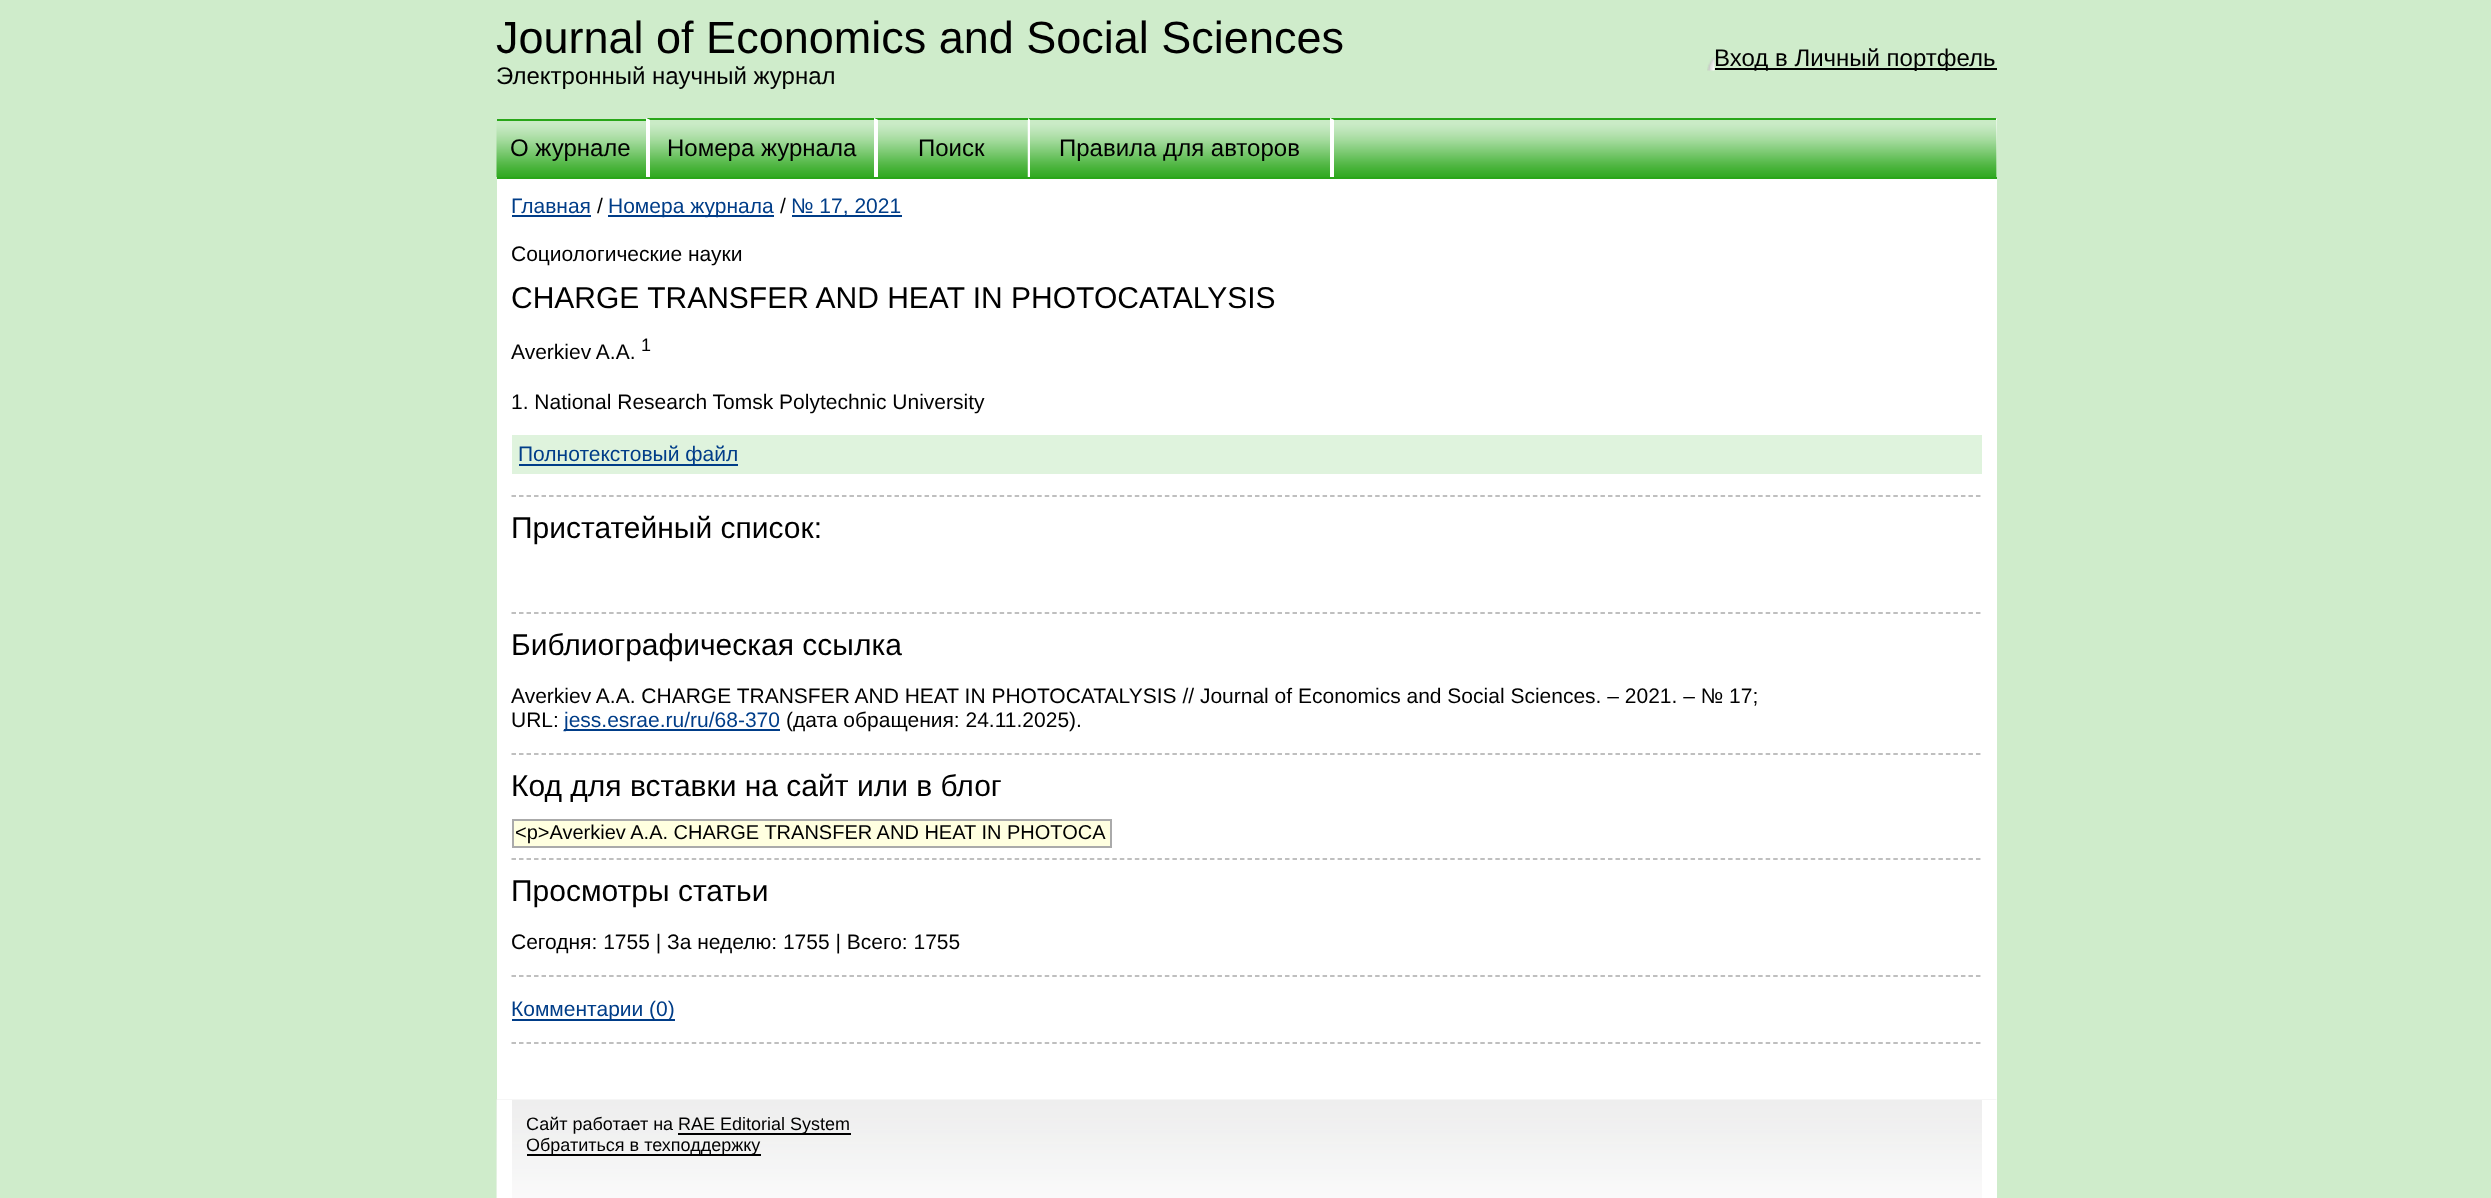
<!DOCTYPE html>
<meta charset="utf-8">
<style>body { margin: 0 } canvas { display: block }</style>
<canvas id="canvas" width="2491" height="1198"></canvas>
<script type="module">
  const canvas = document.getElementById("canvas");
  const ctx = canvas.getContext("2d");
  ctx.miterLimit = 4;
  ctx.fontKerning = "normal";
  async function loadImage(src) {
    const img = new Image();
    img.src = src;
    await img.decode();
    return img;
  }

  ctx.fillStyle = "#cfeccb";
  ctx.fillRect(0, 0, 2491, 1198);
  ctx.font = "45px Liberation Sans";
  ctx.fillStyle = "#000000";
  ctx.fillText("Journal of Economics and Social Sciences", 496, 53);
  ctx.font = "24px Liberation Sans";
  ctx.fillText("Электронный научный журнал", 496, 84);
  ctx.drawImage(await loadImage("img1.png"), 1707, 57, 8, 14);
  ctx.fillRect(1715, 68, 282, 2);
  ctx.fillText("Вход в Личный портфель", 1714, 66);
  ctx.fillStyle = "#ffffff";
  ctx.fillRect(497, 119, 1500, 981);
  ctx.fillStyle = "#29a619";
  ctx.fillRect(497, 177, 1500, 2);
  ctx.drawImage(await loadImage("img2.png"), 496, 120, 150, 57);
  ctx.fillRect(497, 119, 150, 2);
  ctx.fillStyle = "#000000";
  ctx.fillText("О журнале", 510, 156);
  ctx.drawImage(await loadImage("img3.png"), 650, 120, 224, 57);
  ctx.fillStyle = "#29a619";
  ctx.beginPath();
  ctx.moveTo(646, 118);
  ctx.lineTo(874, 118);
  ctx.lineTo(874, 120);
  ctx.lineTo(650, 120);
  ctx.closePath();
  ctx.fill();
  ctx.fillStyle = "#ffffff";
  ctx.beginPath();
  ctx.moveTo(646, 177);
  ctx.lineTo(646, 118);
  ctx.lineTo(650, 120);
  ctx.lineTo(650, 177);
  ctx.closePath();
  ctx.fill();
  ctx.fillStyle = "#000000";
  ctx.fillText("Номера журнала", 667, 156);
  ctx.drawImage(await loadImage("img4.png"), 878, 120, 150, 57);
  ctx.fillStyle = "#29a619";
  ctx.beginPath();
  ctx.moveTo(874, 118);
  ctx.lineTo(1028, 118);
  ctx.lineTo(1028, 120);
  ctx.lineTo(878, 120);
  ctx.closePath();
  ctx.fill();
  ctx.fillStyle = "#ffffff";
  ctx.beginPath();
  ctx.moveTo(874, 177);
  ctx.lineTo(874, 118);
  ctx.lineTo(878, 120);
  ctx.lineTo(878, 177);
  ctx.closePath();
  ctx.fill();
  ctx.fillStyle = "#000000";
  ctx.fillText("Поиск", 918, 156);
  ctx.drawImage(await loadImage("img5.png"), 1027, 120, 303, 57);
  ctx.fillStyle = "#29a619";
  ctx.beginPath();
  ctx.moveTo(1028, 118);
  ctx.lineTo(1330, 118);
  ctx.lineTo(1330, 120);
  ctx.lineTo(1030, 120);
  ctx.closePath();
  ctx.fill();
  ctx.fillStyle = "#ffffff";
  ctx.beginPath();
  ctx.moveTo(1028, 177);
  ctx.lineTo(1028, 118);
  ctx.lineTo(1030, 120);
  ctx.lineTo(1030, 177);
  ctx.closePath();
  ctx.fill();
  ctx.fillStyle = "#000000";
  ctx.fillText("Правила для авторов", 1059, 156);
  ctx.drawImage(await loadImage("img6.png"), 1334, 120, 663, 57);
  ctx.fillStyle = "#29a619";
  ctx.beginPath();
  ctx.moveTo(1330, 118);
  ctx.lineTo(1996, 118);
  ctx.lineTo(1996, 120);
  ctx.lineTo(1334, 120);
  ctx.closePath();
  ctx.fill();
  ctx.fillStyle = "#ffffff";
  ctx.beginPath();
  ctx.moveTo(1330, 177);
  ctx.lineTo(1330, 118);
  ctx.lineTo(1334, 120);
  ctx.lineTo(1334, 177);
  ctx.closePath();
  ctx.fill();
  ctx.font = "21px Liberation Sans";
  ctx.fillStyle = "#003d88";
  ctx.fillText("Главная", 511, 213);
  ctx.fillRect(512, 215, 79, 2);
  ctx.fillStyle = "#000000";
  ctx.fillText("/", 597, 213);
  ctx.fillStyle = "#003d88";
  ctx.fillRect(608, 215, 166, 2);
  ctx.fillText("Номера журнала", 608, 213);
  ctx.fillStyle = "#000000";
  ctx.fillText("/", 780, 213);
  ctx.fillStyle = "#003d88";
  ctx.fillRect(792, 215, 110, 2);
  ctx.fillText("№ 17, 2021", 791, 213);
  ctx.fillStyle = "#000000";
  ctx.fillText("Социологические науки", 511, 261);
  ctx.font = "30px Liberation Sans";
  ctx.fillText("CHARGE TRANSFER AND HEAT IN PHOTOCATALYSIS", 511, 308);
  ctx.font = "21px Liberation Sans";
  ctx.fillText("Averkiev A.A.", 511, 359);
  ctx.font = "18px Liberation Sans";
  ctx.fillText("1", 641, 351);
  ctx.font = "21px Liberation Sans";
  ctx.fillText("1. National Research Tomsk Polytechnic University", 511, 409);
  ctx.fillStyle = "#dff3dd";
  ctx.fillRect(512, 435, 1470, 39);
  ctx.fillStyle = "#003d88";
  ctx.fillRect(519, 464, 219, 2);
  ctx.fillText("Полнотекстовый файл", 518, 461);
  ctx.beginPath();
  ctx.moveTo(511.5, 496);
  ctx.lineTo(1981.5, 496);
  ctx.strokeStyle = "#aaaaaa";
  ctx.lineWidth = 1.5;
  ctx.setLineDash([4.5, 3.01]);
  ctx.stroke();
  ctx.font = "30px Liberation Sans";
  ctx.fillStyle = "#000000";
  ctx.fillText("Пристатейный список:", 511, 538);
  ctx.beginPath();
  ctx.moveTo(511.5, 613);
  ctx.lineTo(1981.5, 613);
  ctx.stroke();
  ctx.fillText("Библиографическая ссылка", 511, 655);
  ctx.font = "21px Liberation Sans";
  ctx.fillText("Averkiev A.A. CHARGE TRANSFER AND HEAT IN PHOTOCATALYSIS // Journal of Economics and Social Sciences. – 2021. – № 17;", 511, 703);
  ctx.fillText("URL:", 511, 727);
  ctx.fillStyle = "#003d88";
  ctx.fillRect(564, 729, 216, 2);
  ctx.fillText("jess.esrae.ru/ru/68-370", 564, 727);
  ctx.fillStyle = "#000000";
  ctx.fillText("(дата обращения: 24.11.2025).", 786, 727);
  ctx.beginPath();
  ctx.moveTo(511.5, 754);
  ctx.lineTo(1981.5, 754);
  ctx.stroke();
  ctx.font = "30px Liberation Sans";
  ctx.fillText("Код для вставки на сайт или в блог", 511, 796);
  ctx.fillStyle = "#ffffe0";
  ctx.beginPath();
  ctx.rect(513, 820, 598, 27);
  ctx.fill();
  ctx.lineWidth = 2;
  ctx.setLineDash([]);
  ctx.stroke();
  ctx.font = "20px Liberation Sans";
  ctx.fillStyle = "#000000";
  ctx.fillText("<p>Averkiev A.A. CHARGE TRANSFER AND HEAT IN PHOTOCA", 515, 839);
  ctx.beginPath();
  ctx.moveTo(511.5, 859);
  ctx.lineTo(1981.5, 859);
  ctx.lineWidth = 1.5;
  ctx.setLineDash([4.5, 3.01]);
  ctx.stroke();
  ctx.font = "30px Liberation Sans";
  ctx.fillText("Просмотры статьи", 511, 901);
  ctx.font = "21px Liberation Sans";
  ctx.fillText("Сегодня: 1755 | За неделю: 1755 | Всего: 1755", 511, 949);
  ctx.beginPath();
  ctx.moveTo(511.5, 976);
  ctx.lineTo(1981.5, 976);
  ctx.stroke();
  ctx.fillStyle = "#003d88";
  ctx.fillRect(512, 1019, 163, 2);
  ctx.fillText("Комментарии (0)", 511, 1016);
  ctx.beginPath();
  ctx.moveTo(511.5, 1043);
  ctx.lineTo(1981.5, 1043);
  ctx.stroke();
  ctx.drawImage(await loadImage("img7.png"), 496, 1099, 1501, 99);
  ctx.fillStyle = "#ffffff";
  ctx.fillRect(1982, 1100, 15, 98);
  ctx.fillRect(497, 1100, 15, 98);
  ctx.font = "18px Liberation Sans";
  ctx.fillStyle = "#000000";
  ctx.fillText("Сайт работает на", 526, 1130);
  ctx.fillRect(678, 1133, 173, 2);
  ctx.fillText("RAE Editorial System", 678, 1130);
  ctx.fillRect(527, 1154, 234, 2);
  ctx.fillText("Обратиться в техподдержку", 526, 1151);
</script>
